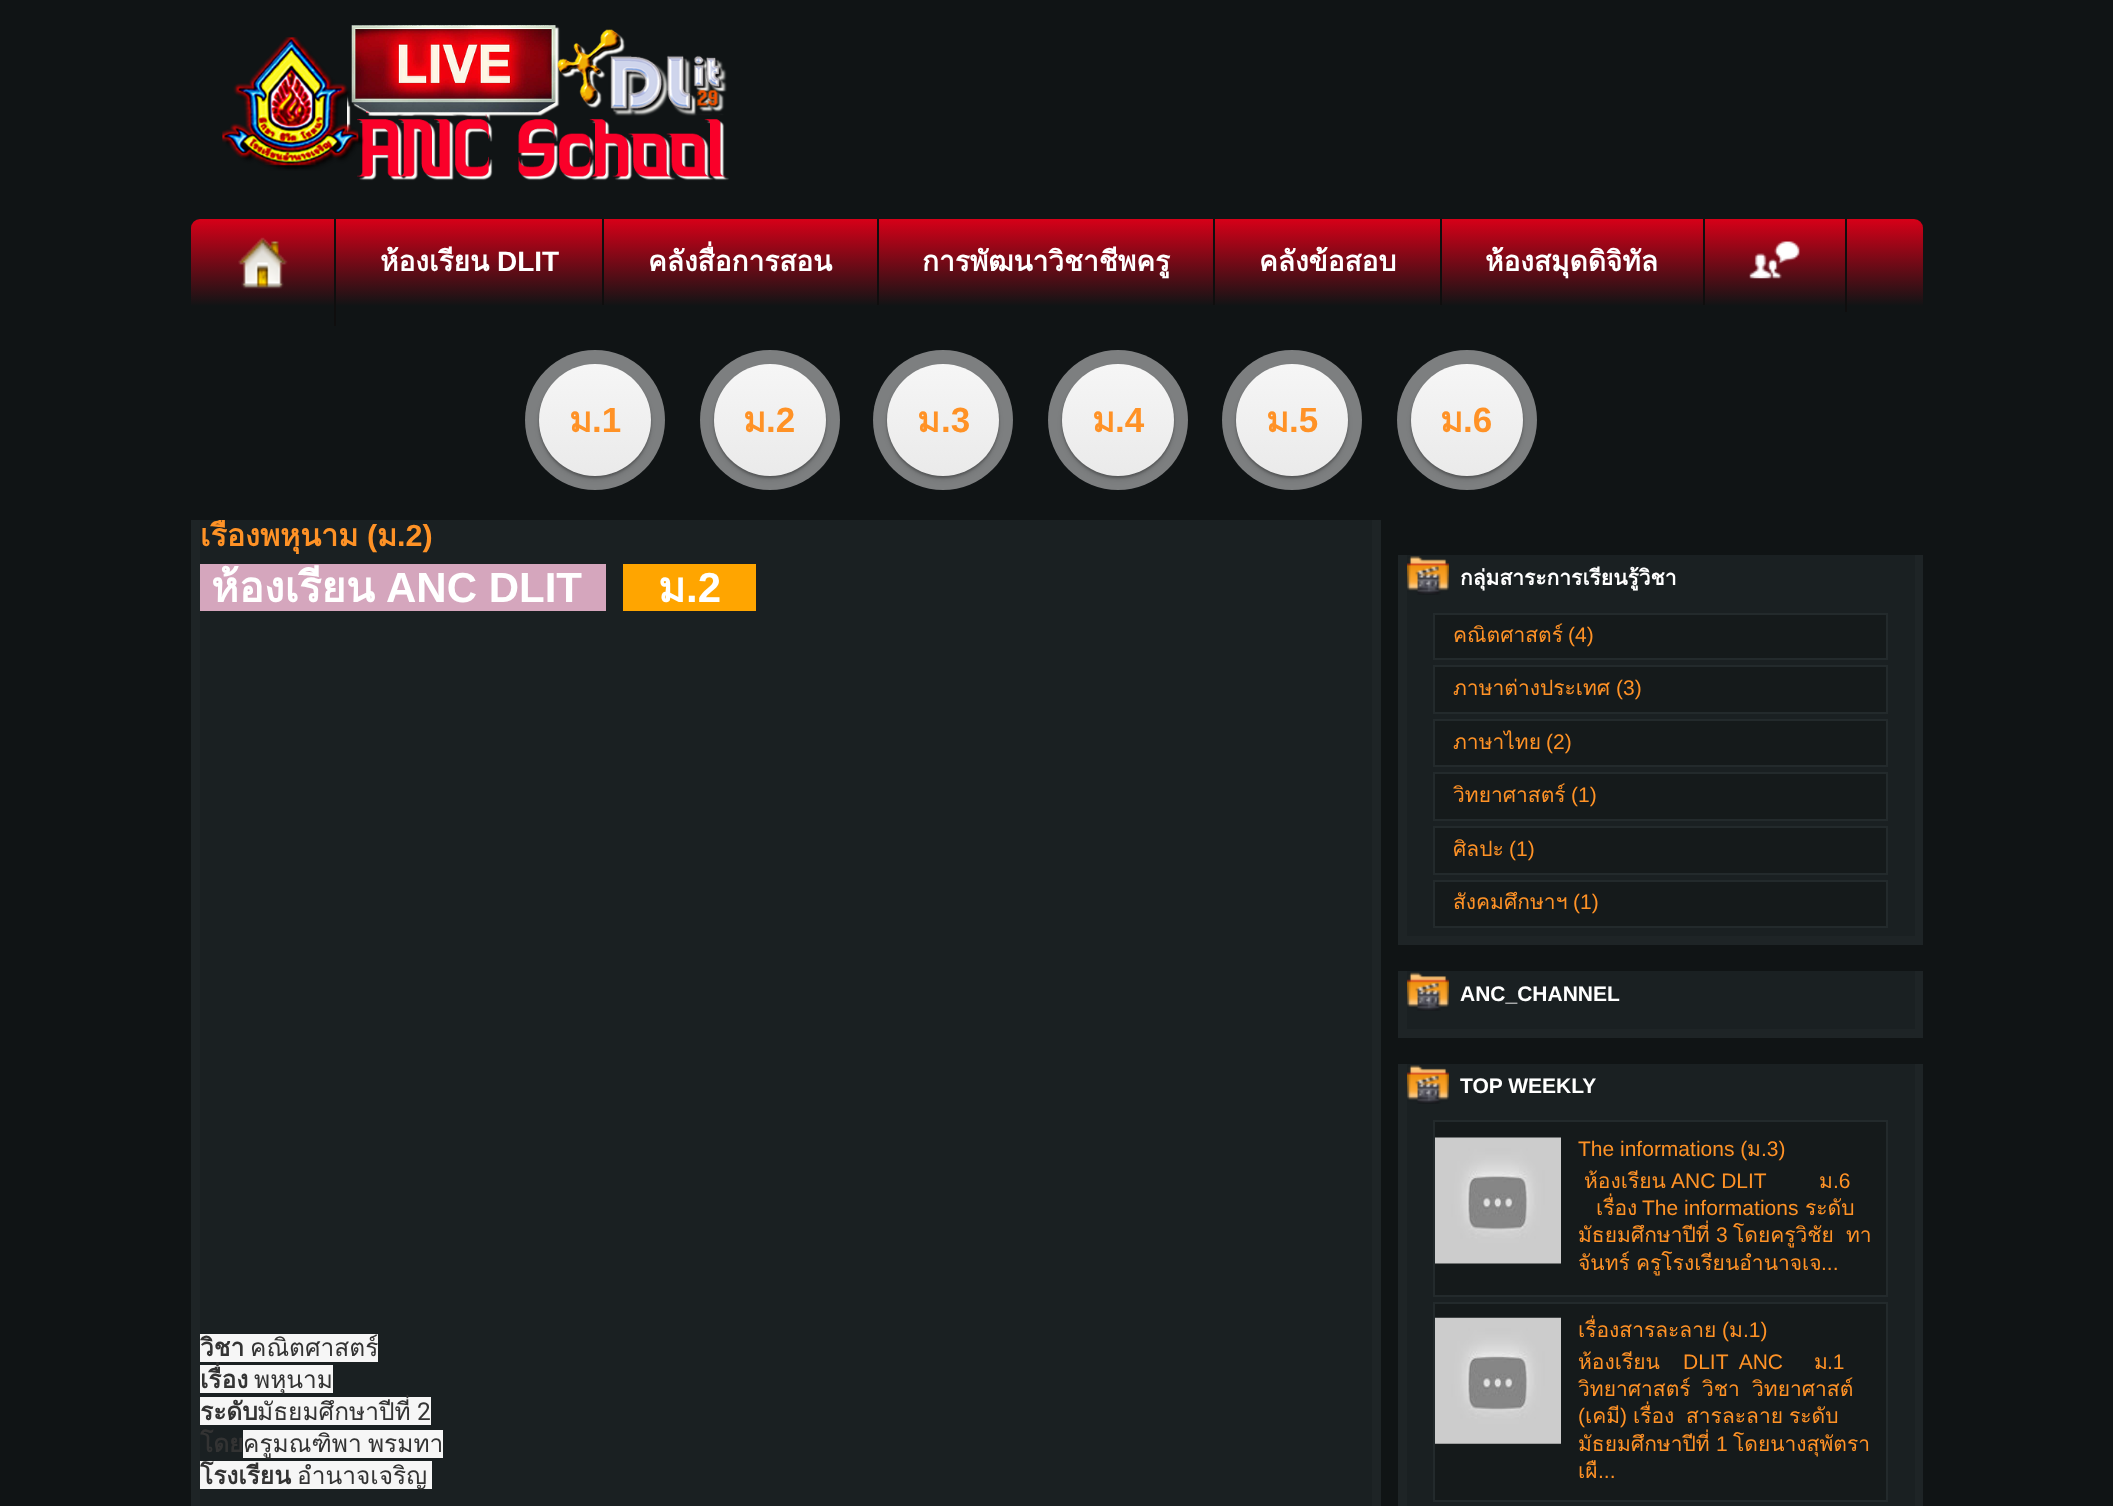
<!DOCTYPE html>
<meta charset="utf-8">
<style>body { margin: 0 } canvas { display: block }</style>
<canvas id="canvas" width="2113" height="1506"></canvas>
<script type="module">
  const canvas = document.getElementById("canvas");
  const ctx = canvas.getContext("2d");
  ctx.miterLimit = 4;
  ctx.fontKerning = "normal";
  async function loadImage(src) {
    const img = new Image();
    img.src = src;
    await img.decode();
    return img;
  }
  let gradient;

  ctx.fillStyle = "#101415";
  ctx.fillRect(0, 0, 2113, 1506);
  ctx.drawImage(await loadImage("img1.png"), 222, 25, 507, 156);
  gradient = ctx.createLinearGradient(1057, 219, 1057, 306);
  gradient.addColorStop(0, "#d70018");
  gradient.addColorStop(1, "#101415");
  ctx.fillStyle = gradient;
  ctx.beginPath();
  ctx.roundRect(191, 219, 1732, 87, [9, 9, 0, 0]);
  ctx.fill();
  ctx.fillStyle = "#0f0e0e";
  ctx.fillRect(334, 219, 2, 107);
  ctx.drawImage(await loadImage("img2.png"), 238, 237, 50, 52);
  ctx.fillRect(602, 219, 2, 86);
  ctx.font = "bold 28px Loma";
  ctx.fillStyle = "#ffffff";
  ctx.fillText("ห้องเรียน", 380, 271);
  ctx.font = "bold 28px Liberation Sans";
  ctx.fillText("DLIT", 497, 271);
  ctx.fillStyle = "#0f0e0e";
  ctx.fillRect(877, 219, 2, 86);
  ctx.font = "bold 28px Loma";
  ctx.fillStyle = "#ffffff";
  ctx.fillText("คลังสื่อการสอน", 648, 271);
  ctx.fillStyle = "#0f0e0e";
  ctx.fillRect(1213, 219, 2, 86);
  ctx.fillStyle = "#ffffff";
  ctx.fillText("การพัฒนาวิชาชีพครู", 922, 271);
  ctx.fillStyle = "#0f0e0e";
  ctx.fillRect(1440, 219, 2, 86);
  ctx.fillStyle = "#ffffff";
  ctx.fillText("คลังข้อสอบ", 1259, 271);
  ctx.fillStyle = "#0f0e0e";
  ctx.fillRect(1703, 219, 2, 86);
  ctx.fillStyle = "#ffffff";
  ctx.fillText("ห้องสมุดดิจิทัล", 1485, 271);
  ctx.fillStyle = "#0f0e0e";
  ctx.fillRect(1845, 219, 2, 93);
  ctx.drawImage(await loadImage("img3.png"), 1749, 241, 51, 38);
  ctx.fillStyle = "#7d7f80";
  ctx.beginPath();
  ctx.arc(595, 420, 70, 0, Math.PI * 2);
  ctx.fill();
  ctx.fillStyle = "rgba(0, 0, 0, 0.1)";
  ctx.filter = "blur(2.5px)";
  ctx.beginPath();
  ctx.roundRect(539, 368, 112, 112, 56);
  ctx.fill();
  ctx.filter = "none";
  ctx.fillStyle = "rgba(0, 0, 0, 0.25)";
  ctx.filter = "blur(1px)";
  ctx.beginPath();
  ctx.roundRect(539, 366, 112, 112, 56);
  ctx.fill();
  ctx.filter = "none";
  gradient = ctx.createLinearGradient(595, 364, 595, 476);
  gradient.addColorStop(0, "#f6f6f6");
  gradient.addColorStop(1, "#eaeaea");
  ctx.fillStyle = gradient;
  ctx.beginPath();
  ctx.arc(595, 420, 56, 0, Math.PI * 2);
  ctx.fill();
  ctx.font = "bold 35px Loma";
  ctx.fillStyle = "#ff9226";
  ctx.fillText("ม", 569, 432);
  ctx.font = "bold 35px Liberation Sans";
  ctx.fillText(".1", 592, 432);
  ctx.fillStyle = "#7d7f80";
  ctx.beginPath();
  ctx.arc(770, 420, 70, 0, Math.PI * 2);
  ctx.fill();
  ctx.fillStyle = "rgba(0, 0, 0, 0.1)";
  ctx.filter = "blur(2.5px)";
  ctx.beginPath();
  ctx.roundRect(714, 368, 112, 112, 56);
  ctx.fill();
  ctx.filter = "none";
  ctx.fillStyle = "rgba(0, 0, 0, 0.25)";
  ctx.filter = "blur(1px)";
  ctx.beginPath();
  ctx.roundRect(714, 366, 112, 112, 56);
  ctx.fill();
  ctx.filter = "none";
  gradient = ctx.createLinearGradient(770, 364, 770, 476);
  gradient.addColorStop(0, "#f6f6f6");
  gradient.addColorStop(1, "#eaeaea");
  ctx.fillStyle = gradient;
  ctx.beginPath();
  ctx.arc(770, 420, 56, 0, Math.PI * 2);
  ctx.fill();
  ctx.font = "bold 35px Loma";
  ctx.fillStyle = "#ff9226";
  ctx.fillText("ม", 743, 432);
  ctx.font = "bold 35px Liberation Sans";
  ctx.fillText(".2", 766, 432);
  ctx.fillStyle = "#7d7f80";
  ctx.beginPath();
  ctx.arc(943, 420, 70, 0, Math.PI * 2);
  ctx.fill();
  ctx.fillStyle = "rgba(0, 0, 0, 0.1)";
  ctx.filter = "blur(2.5px)";
  ctx.beginPath();
  ctx.roundRect(887, 368, 112, 112, 56);
  ctx.fill();
  ctx.filter = "none";
  ctx.fillStyle = "rgba(0, 0, 0, 0.25)";
  ctx.filter = "blur(1px)";
  ctx.beginPath();
  ctx.roundRect(887, 366, 112, 112, 56);
  ctx.fill();
  ctx.filter = "none";
  gradient = ctx.createLinearGradient(943, 364, 943, 476);
  gradient.addColorStop(0, "#f6f6f6");
  gradient.addColorStop(1, "#eaeaea");
  ctx.fillStyle = gradient;
  ctx.beginPath();
  ctx.arc(943, 420, 56, 0, Math.PI * 2);
  ctx.fill();
  ctx.font = "bold 35px Loma";
  ctx.fillStyle = "#ff9226";
  ctx.fillText("ม", 917, 432);
  ctx.font = "bold 35px Liberation Sans";
  ctx.fillText(".3", 941, 432);
  ctx.fillStyle = "#7d7f80";
  ctx.beginPath();
  ctx.arc(1118, 420, 70, 0, Math.PI * 2);
  ctx.fill();
  ctx.fillStyle = "rgba(0, 0, 0, 0.1)";
  ctx.filter = "blur(2.5px)";
  ctx.beginPath();
  ctx.roundRect(1062, 368, 112, 112, 56);
  ctx.fill();
  ctx.filter = "none";
  ctx.fillStyle = "rgba(0, 0, 0, 0.25)";
  ctx.filter = "blur(1px)";
  ctx.beginPath();
  ctx.roundRect(1062, 366, 112, 112, 56);
  ctx.fill();
  ctx.filter = "none";
  gradient = ctx.createLinearGradient(1118, 364, 1118, 476);
  gradient.addColorStop(0, "#f6f6f6");
  gradient.addColorStop(1, "#eaeaea");
  ctx.fillStyle = gradient;
  ctx.beginPath();
  ctx.arc(1118, 420, 56, 0, Math.PI * 2);
  ctx.fill();
  ctx.font = "bold 35px Loma";
  ctx.fillStyle = "#ff9226";
  ctx.fillText("ม", 1092, 432);
  ctx.font = "bold 35px Liberation Sans";
  ctx.fillText(".4", 1115, 432);
  ctx.fillStyle = "#7d7f80";
  ctx.beginPath();
  ctx.arc(1292, 420, 70, 0, Math.PI * 2);
  ctx.fill();
  ctx.fillStyle = "rgba(0, 0, 0, 0.1)";
  ctx.filter = "blur(2.5px)";
  ctx.beginPath();
  ctx.roundRect(1236, 368, 112, 112, 56);
  ctx.fill();
  ctx.filter = "none";
  ctx.fillStyle = "rgba(0, 0, 0, 0.25)";
  ctx.filter = "blur(1px)";
  ctx.beginPath();
  ctx.roundRect(1236, 366, 112, 112, 56);
  ctx.fill();
  ctx.filter = "none";
  gradient = ctx.createLinearGradient(1292, 364, 1292, 476);
  gradient.addColorStop(0, "#f6f6f6");
  gradient.addColorStop(1, "#eaeaea");
  ctx.fillStyle = gradient;
  ctx.beginPath();
  ctx.arc(1292, 420, 56, 0, Math.PI * 2);
  ctx.fill();
  ctx.font = "bold 35px Loma";
  ctx.fillStyle = "#ff9226";
  ctx.fillText("ม", 1266, 432);
  ctx.font = "bold 35px Liberation Sans";
  ctx.fillText(".5", 1289, 432);
  ctx.fillStyle = "#7d7f80";
  ctx.beginPath();
  ctx.arc(1467, 420, 70, 0, Math.PI * 2);
  ctx.fill();
  ctx.fillStyle = "rgba(0, 0, 0, 0.1)";
  ctx.filter = "blur(2.5px)";
  ctx.beginPath();
  ctx.roundRect(1411, 368, 112, 112, 56);
  ctx.fill();
  ctx.filter = "none";
  ctx.fillStyle = "rgba(0, 0, 0, 0.25)";
  ctx.filter = "blur(1px)";
  ctx.beginPath();
  ctx.roundRect(1411, 366, 112, 112, 56);
  ctx.fill();
  ctx.filter = "none";
  gradient = ctx.createLinearGradient(1467, 364, 1467, 476);
  gradient.addColorStop(0, "#f6f6f6");
  gradient.addColorStop(1, "#eaeaea");
  ctx.fillStyle = gradient;
  ctx.beginPath();
  ctx.arc(1467, 420, 56, 0, Math.PI * 2);
  ctx.fill();
  ctx.font = "bold 35px Loma";
  ctx.fillStyle = "#ff9226";
  ctx.fillText("ม", 1440, 432);
  ctx.font = "bold 35px Liberation Sans";
  ctx.fillText(".6", 1463, 432);
  ctx.fillStyle = "#1a2022";
  ctx.fillRect(200, 520, 1172, 986);
  ctx.fillStyle = "#1e2426";
  ctx.fillRect(1372, 520, 9, 986);
  ctx.fillRect(191, 520, 9, 986);
  ctx.save();
  ctx.beginPath();
  ctx.rect(191, 520, 1190, 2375);
  ctx.clip();
  ctx.font = "bold 30.5px Loma";
  ctx.fillStyle = "#ff9226";
  ctx.fillText("เรื่องพหุนาม", 200, 546);
  ctx.restore();
  ctx.font = "bold 30.5px Liberation Sans";
  ctx.fillStyle = "#ff9226";
  ctx.fillText("(", 367, 546);
  ctx.font = "bold 30.5px Loma";
  ctx.fillText("ม", 377, 546);
  ctx.font = "bold 30.5px Liberation Sans";
  ctx.fillText(".2)", 397, 546);
  ctx.fillStyle = "#d5a6bd";
  ctx.fillRect(200, 564, 406, 47);
  ctx.font = "bold 42px Loma";
  ctx.fillStyle = "#ffffff";
  ctx.fillText("ห้องเรียน", 211, 602);
  ctx.font = "bold 42px Liberation Sans";
  ctx.fillText("ANC DLIT", 386, 602);
  ctx.fillStyle = "#ffa500";
  ctx.fillRect(623, 564, 133, 47);
  ctx.font = "bold 42px Loma";
  ctx.fillStyle = "#ffffff";
  ctx.fillText("ม", 658, 602);
  ctx.font = "bold 42px Liberation Sans";
  ctx.fillText(".2", 686, 602);
  ctx.fillStyle = "#f6f6f6";
  ctx.fillRect(200, 1334, 178, 28);
  ctx.save();
  ctx.beginPath();
  ctx.rect(191, 520, 1190, 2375);
  ctx.clip();
  ctx.font = "bold 24.5px Loma";
  ctx.fillStyle = "#333333";
  ctx.fillText("วิชา", 200, 1356);
  ctx.restore();
  ctx.font = "24.5px Loma";
  ctx.fillStyle = "#333333";
  ctx.fillText("คณิตศาสตร์", 250, 1356);
  ctx.fillStyle = "#f6f6f6";
  ctx.fillRect(200, 1365, 133, 28);
  ctx.font = "bold 24.5px Loma";
  ctx.fillStyle = "#333333";
  ctx.fillText("เรื่อง", 200, 1388);
  ctx.font = "24.5px Loma";
  ctx.fillText("พหุนาม", 254, 1388);
  ctx.fillStyle = "#f6f6f6";
  ctx.fillRect(200, 1397, 231, 28);
  ctx.font = "bold 24.5px Loma";
  ctx.fillStyle = "#333333";
  ctx.fillText("ระดับ", 200, 1420);
  ctx.font = "24.5px Loma";
  ctx.fillText("มัธยมศึกษาปีที่", 257, 1420);
  ctx.font = "24.5px Roboto";
  ctx.fillText("2", 417, 1420);
  ctx.font = "bold 24.5px Loma";
  ctx.fillText("โดย", 200, 1452);
  ctx.fillStyle = "#f6f6f6";
  ctx.fillRect(243, 1430, 200, 28);
  ctx.wordSpacing = "-2px";
  ctx.font = "24.5px Loma";
  ctx.fillStyle = "#333333";
  ctx.fillText("ครูมณฑิพา พรมทา", 243, 1452);
  ctx.fillStyle = "#f6f6f6";
  ctx.fillRect(200, 1461, 232, 28);
  ctx.wordSpacing = "0px";
  ctx.font = "bold 24.5px Loma";
  ctx.fillStyle = "#333333";
  ctx.fillText("โรงเรียน", 200, 1484);
  ctx.font = "24.5px Loma";
  ctx.fillText("อำนาจเจริญ", 297, 1484);
  ctx.fillStyle = "#1a2022";
  ctx.fillRect(1407, 555, 508, 381);
  ctx.fillStyle = "#1e2426";
  ctx.fillRect(1915, 555, 8, 381);
  ctx.fillRect(1407, 936, 516, 9);
  ctx.fillRect(1398, 555, 9, 390);
  ctx.drawImage(await loadImage("img4.png"), 1407, 556, 42, 39);
  ctx.font = "bold 21px Loma";
  ctx.fillStyle = "#ffffff";
  ctx.fillText("กลุ่มสาระการเรียนรู้วิชา", 1460, 585);
  ctx.fillStyle = "#151a1b";
  ctx.beginPath();
  ctx.rect(1434, 614, 453, 45);
  ctx.fill();
  ctx.strokeStyle = "#232a2c";
  ctx.lineWidth = 2;
  ctx.stroke();
  ctx.font = "21px Loma";
  ctx.fillStyle = "#ff9226";
  ctx.fillText("คณิตศาสตร์", 1453, 642);
  ctx.font = "21px Liberation Sans";
  ctx.fillText("(4)", 1568, 642);
  ctx.fillStyle = "#151a1b";
  ctx.beginPath();
  ctx.rect(1434, 666, 453, 47);
  ctx.fill();
  ctx.stroke();
  ctx.font = "21px Loma";
  ctx.fillStyle = "#ff9226";
  ctx.fillText("ภาษาต่างประเทศ", 1453, 695);
  ctx.font = "21px Liberation Sans";
  ctx.fillText("(3)", 1616, 695);
  ctx.fillStyle = "#151a1b";
  ctx.beginPath();
  ctx.rect(1434, 720, 453, 46);
  ctx.fill();
  ctx.stroke();
  ctx.font = "21px Loma";
  ctx.fillStyle = "#ff9226";
  ctx.fillText("ภาษาไทย", 1453, 749);
  ctx.font = "21px Liberation Sans";
  ctx.fillText("(2)", 1546, 749);
  ctx.fillStyle = "#151a1b";
  ctx.beginPath();
  ctx.rect(1434, 773, 453, 47);
  ctx.fill();
  ctx.stroke();
  ctx.font = "21px Loma";
  ctx.fillStyle = "#ff9226";
  ctx.fillText("วิทยาศาสตร์", 1453, 802);
  ctx.font = "21px Liberation Sans";
  ctx.fillText("(1)", 1571, 802);
  ctx.fillStyle = "#151a1b";
  ctx.beginPath();
  ctx.rect(1434, 827, 453, 47);
  ctx.fill();
  ctx.stroke();
  ctx.font = "21px Loma";
  ctx.fillStyle = "#ff9226";
  ctx.fillText("ศิลปะ", 1453, 856);
  ctx.font = "21px Liberation Sans";
  ctx.fillText("(1)", 1509, 856);
  ctx.fillStyle = "#151a1b";
  ctx.beginPath();
  ctx.rect(1434, 881, 453, 46);
  ctx.fill();
  ctx.stroke();
  ctx.font = "21px Loma";
  ctx.fillStyle = "#ff9226";
  ctx.fillText("สังคมศึกษาฯ", 1453, 909);
  ctx.font = "21px Liberation Sans";
  ctx.fillText("(1)", 1573, 909);
  ctx.fillStyle = "#1a2022";
  ctx.fillRect(1407, 971, 508, 58);
  ctx.fillStyle = "#1e2426";
  ctx.fillRect(1915, 971, 8, 58);
  ctx.fillRect(1407, 1029, 516, 9);
  ctx.fillRect(1398, 971, 9, 67);
  ctx.drawImage(await loadImage("img5.png"), 1407, 972, 42, 39);
  ctx.font = "bold 21px Liberation Sans";
  ctx.fillStyle = "#ffffff";
  ctx.fillText("ANC_CHANNEL", 1460, 1001);
  ctx.fillStyle = "#1a2022";
  ctx.fillRect(1407, 1064, 508, 442);
  ctx.fillStyle = "#1e2426";
  ctx.fillRect(1915, 1064, 8, 442);
  ctx.fillRect(1398, 1064, 9, 442);
  ctx.drawImage(await loadImage("img6.png"), 1407, 1065, 42, 39);
  ctx.fillStyle = "#ffffff";
  ctx.fillText("TOP WEEKLY", 1460, 1093);
  ctx.fillStyle = "#151a1b";
  ctx.beginPath();
  ctx.rect(1434, 1121, 453, 175);
  ctx.fill();
  ctx.stroke();
  ctx.drawImage(await loadImage("img7.png"), 1435, 1137, 126, 127);
  ctx.font = "21px Liberation Sans";
  ctx.fillStyle = "#ff9226";
  ctx.fillText("The informations (", 1578, 1156);
  ctx.font = "21px Loma";
  ctx.fillText("ม", 1747, 1156);
  ctx.font = "21px Liberation Sans";
  ctx.fillText(".3)", 1761, 1156);
  ctx.font = "21px Loma";
  ctx.fillText("ห้องเรียน", 1584, 1188);
  ctx.font = "21px Liberation Sans";
  ctx.fillText("ANC DLIT", 1671, 1188);
  ctx.font = "21px Loma";
  ctx.fillText("ม", 1819, 1188);
  ctx.font = "21px Liberation Sans";
  ctx.fillText(".6", 1833, 1188);
  ctx.font = "21px Loma";
  ctx.fillText("เรื่อง", 1596, 1215);
  ctx.font = "21px Liberation Sans";
  ctx.fillText("The informations", 1642, 1215);
  ctx.font = "21px Loma";
  ctx.fillText("ระดับ", 1805, 1215);
  ctx.fillText("มัธยมศึกษาปีที่", 1578, 1242);
  ctx.font = "21px Liberation Sans";
  ctx.fillText("3", 1716, 1242);
  ctx.font = "21px Loma";
  ctx.fillText("โดยครูวิชัย", 1733, 1242);
  ctx.fillText("ทา", 1846, 1242);
  ctx.fillText("จันทร์", 1578, 1270);
  ctx.fillText("ครูโรงเรียนอำนาจเจ", 1636, 1270);
  ctx.font = "21px Liberation Sans";
  ctx.fillText("...", 1821, 1270);
  ctx.fillStyle = "#151a1b";
  ctx.beginPath();
  ctx.rect(1434, 1303, 453, 198);
  ctx.fill();
  ctx.stroke();
  ctx.drawImage(await loadImage("img8.png"), 1435, 1317, 126, 127);
  ctx.font = "21px Loma";
  ctx.fillStyle = "#ff9226";
  ctx.fillText("เรื่องสารละลาย", 1578, 1337);
  ctx.font = "21px Liberation Sans";
  ctx.fillText("(", 1722, 1337);
  ctx.font = "21px Loma";
  ctx.fillText("ม", 1729, 1337);
  ctx.font = "21px Liberation Sans";
  ctx.fillText(".1)", 1743, 1337);
  ctx.font = "21px Loma";
  ctx.fillText("ห้องเรียน", 1578, 1369);
  ctx.font = "21px Liberation Sans";
  ctx.fillText("DLIT  ANC", 1683, 1369);
  ctx.font = "21px Loma";
  ctx.fillText("ม", 1814, 1369);
  ctx.font = "21px Liberation Sans";
  ctx.fillText(".1", 1827, 1369);
  ctx.font = "21px Loma";
  ctx.fillText("วิทยาศาสตร์", 1578, 1396);
  ctx.fillText("วิชา", 1702, 1396);
  ctx.fillText("วิทยาศาสต์", 1752, 1396);
  ctx.font = "21px Liberation Sans";
  ctx.fillText("(", 1578, 1423);
  ctx.font = "21px Loma";
  ctx.fillText("เคมี", 1585, 1423);
  ctx.font = "21px Liberation Sans";
  ctx.fillText(")", 1620, 1423);
  ctx.font = "21px Loma";
  ctx.fillText("เรื่อง", 1633, 1423);
  ctx.fillText("สารละลาย", 1686, 1423);
  ctx.fillText("ระดับ", 1789, 1423);
  ctx.fillText("มัธยมศึกษาปีที่", 1578, 1451);
  ctx.font = "21px Liberation Sans";
  ctx.fillText("1", 1716, 1451);
  ctx.font = "21px Loma";
  ctx.fillText("โดยนางสุพัตรา", 1733, 1451);
  ctx.fillText("เผื", 1578, 1478);
  ctx.font = "21px Liberation Sans";
  ctx.fillText("...", 1598, 1478);
</script>
